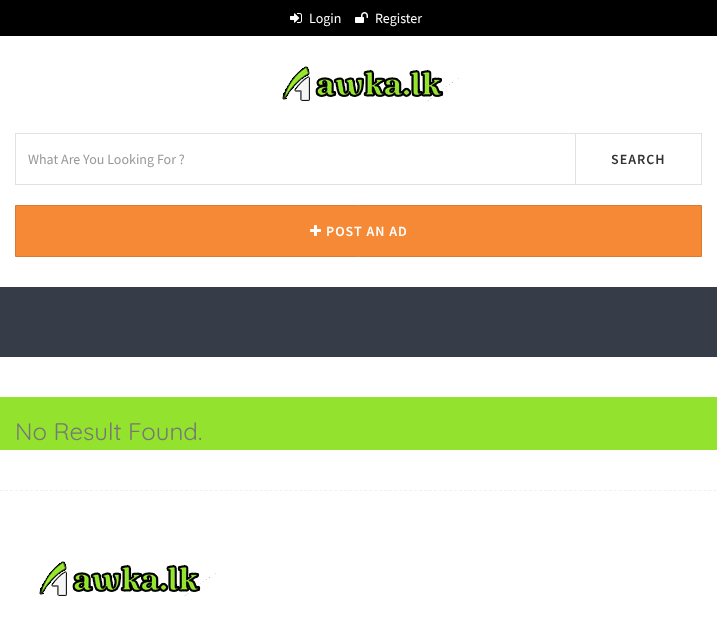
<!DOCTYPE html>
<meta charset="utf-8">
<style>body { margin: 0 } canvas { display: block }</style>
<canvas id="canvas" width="717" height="623"></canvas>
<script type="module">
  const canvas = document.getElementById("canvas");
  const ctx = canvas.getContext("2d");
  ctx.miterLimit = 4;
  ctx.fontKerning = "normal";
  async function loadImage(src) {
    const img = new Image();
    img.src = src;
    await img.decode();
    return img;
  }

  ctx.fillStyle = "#ffffff";
  ctx.fillRect(0, 0, 717, 623);
  ctx.fillStyle = "#000000";
  ctx.fillRect(0, 0, 717, 36);
  ctx.drawImage(await loadImage("img1.png"), 290, 13, 12, 10);
  ctx.font = "14px Source Sans Pro";
  ctx.fillStyle = "#ffffff";
  ctx.fillText("Login", 309, 23);
  ctx.drawImage(await loadImage("img2.png"), 355, 12, 13, 11);
  ctx.fillText("Register", 375, 23);
  ctx.drawImage(await loadImage("img3.png"), 282, 66, 177, 36);
  ctx.strokeStyle = "#e1e1e1";
  ctx.strokeRect(15.5, 133.5, 560, 51);
  ctx.fillStyle = "#999999";
  ctx.fillText("What Are You Looking For ?", 28, 164);
  ctx.strokeRect(575.5, 133.5, 126, 51);
  ctx.letterSpacing = "1px";
  ctx.font = "600 14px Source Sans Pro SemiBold";
  ctx.fillStyle = "#333333";
  ctx.fillText("SEARCH", 611, 164);
  ctx.fillStyle = "#f58936";
  ctx.beginPath();
  ctx.rect(15.5, 205.5, 686, 51);
  ctx.fill();
  ctx.strokeStyle = "#dc7b30";
  ctx.stroke();
  ctx.drawImage(await loadImage("img4.png"), 310, 225, 11, 11);
  ctx.fillStyle = "#ffffff";
  ctx.fillText("POST AN AD", 326, 236);
  ctx.fillStyle = "#363c48";
  ctx.fillRect(0, 287, 717, 70);
  ctx.fillStyle = "#93e22d";
  ctx.fillRect(0, 397, 717, 53);
  ctx.letterSpacing = "0px";
  ctx.font = "24px Quicksand";
  ctx.fillStyle = "#777777";
  ctx.fillText("No Result Found.", 15, 440);
  ctx.beginPath();
  ctx.moveTo(0, 490.5);
  ctx.lineTo(717, 490.5);
  ctx.strokeStyle = "#f1f1f1";
  ctx.setLineDash([3, 1.99]);
  ctx.stroke();
  ctx.drawImage(await loadImage("img3.png"), 39, 561, 177, 36);
</script>
